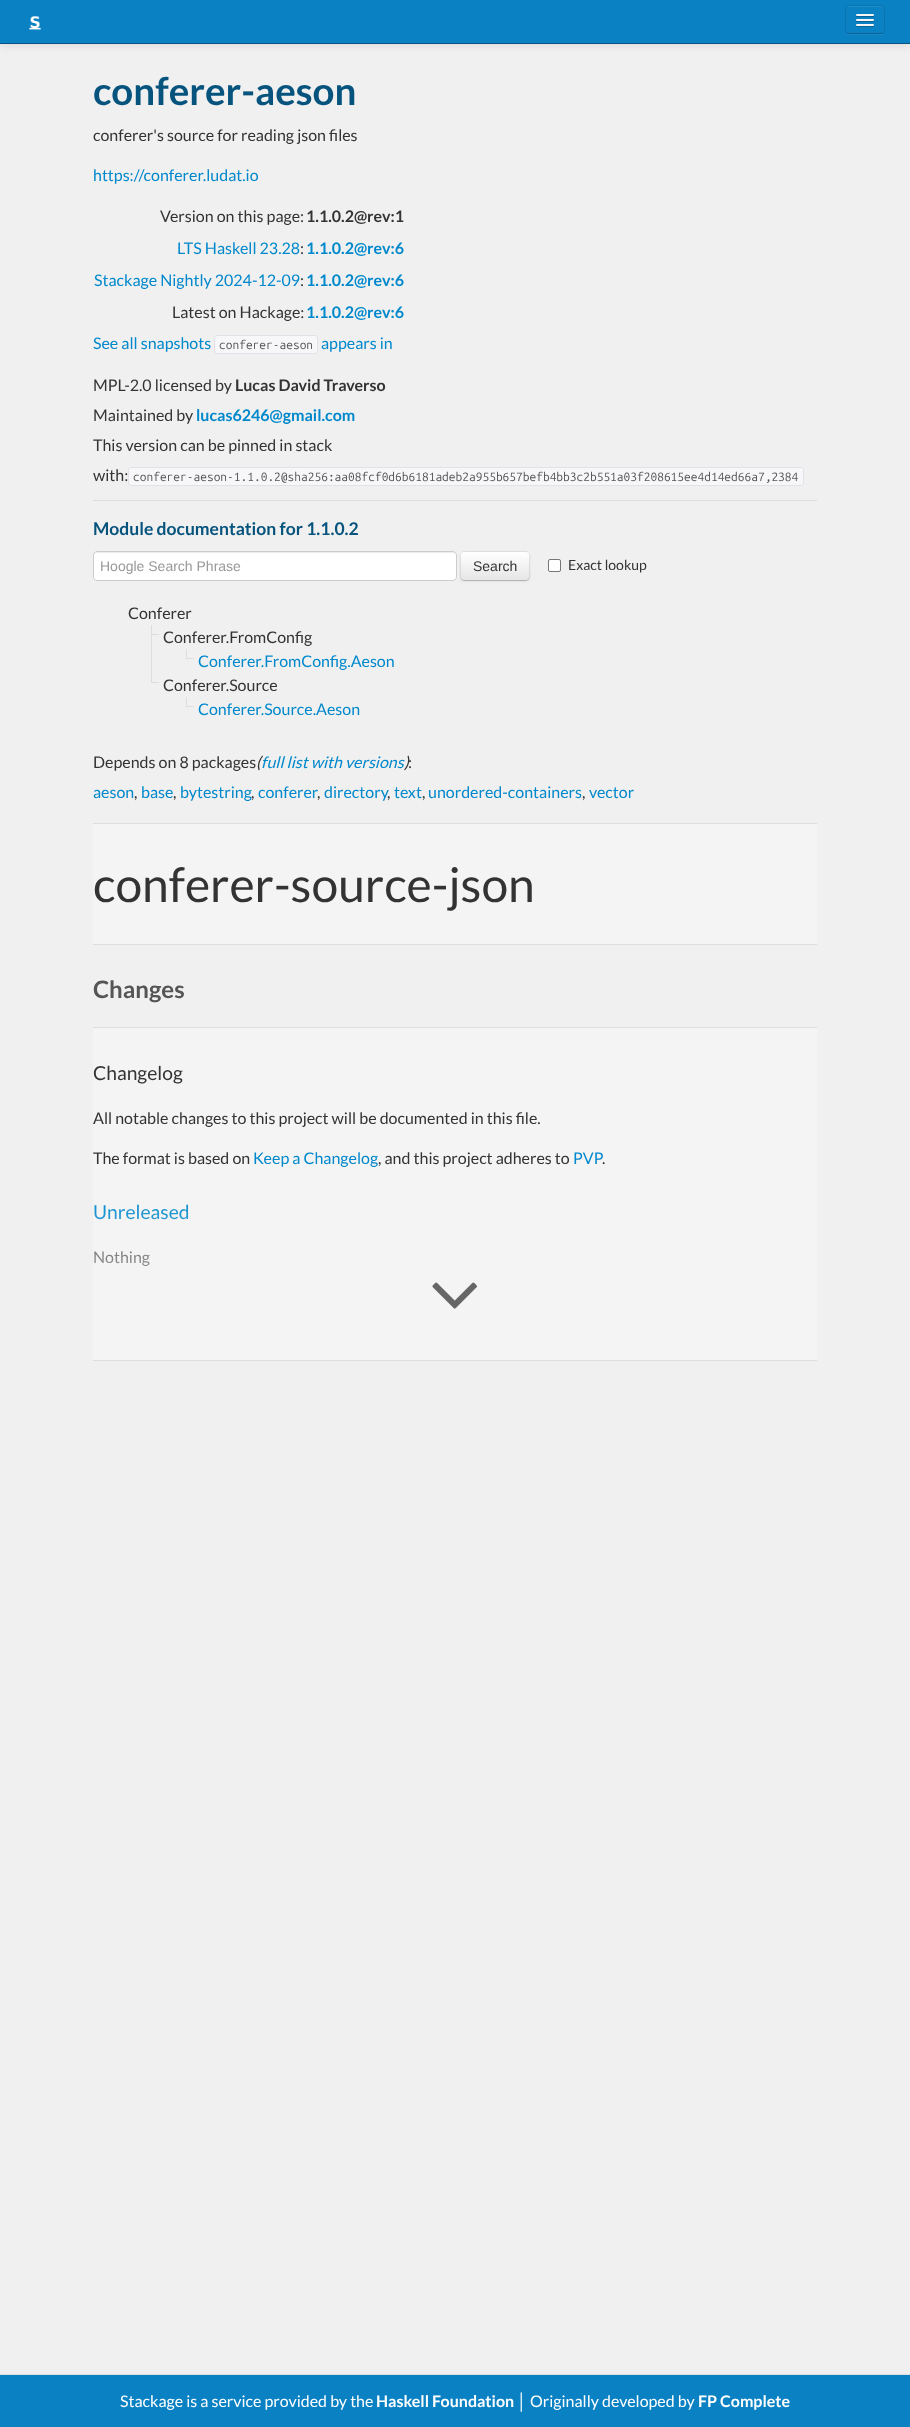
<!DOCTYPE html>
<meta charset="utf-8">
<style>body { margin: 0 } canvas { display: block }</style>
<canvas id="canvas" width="910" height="2427"></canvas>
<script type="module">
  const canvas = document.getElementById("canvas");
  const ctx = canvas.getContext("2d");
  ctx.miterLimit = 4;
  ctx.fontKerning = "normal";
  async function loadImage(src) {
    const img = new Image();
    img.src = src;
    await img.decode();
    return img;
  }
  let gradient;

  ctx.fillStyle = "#f0f0f0";
  ctx.fillRect(0, 0, 910, 2427);
  ctx.fillStyle = "rgba(0, 0, 0, 0.1)";
  ctx.filter = "blur(5px)";
  ctx.beginPath();
  ctx.rect(0, 1, 910, 44);
  ctx.fill();
  ctx.filter = "none";
  ctx.fillStyle = "#0981c3";
  ctx.fillRect(0, 0, 910, 43);
  ctx.fillStyle = "#06537d";
  ctx.fillRect(0, 43, 910, 1);
  ctx.drawImage(await loadImage("img1.png"), 29, 16, 12, 14);
  ctx.fillStyle = "#1b8ac8";
  ctx.beginPath();
  ctx.moveTo(845, 30);
  ctx.bezierCurveTo(845, 36, 850, 35, 854, 35);
  ctx.lineTo(876, 35);
  ctx.bezierCurveTo(880, 35, 885, 36, 885, 30);
  ctx.bezierCurveTo(885, 32, 883, 34, 881, 34);
  ctx.lineTo(849, 34);
  ctx.bezierCurveTo(847, 34, 845, 32, 845, 30);
  ctx.closePath();
  ctx.fill();
  ctx.fillStyle = "#0981c3";
  ctx.beginPath();
  ctx.roundRect(845, 5, 40, 29, 4);
  ctx.fill();
  ctx.fillStyle = "#228ec9";
  ctx.beginPath();
  ctx.moveTo(849, 7);
  ctx.lineTo(881, 7);
  ctx.bezierCurveTo(883, 7, 884, 8, 884, 10);
  ctx.bezierCurveTo(884, 5, 880, 6, 875.5, 6);
  ctx.lineTo(854.5, 6);
  ctx.bezierCurveTo(850, 6, 846, 5, 846, 10);
  ctx.bezierCurveTo(846, 8, 847, 7, 849, 7);
  ctx.closePath();
  ctx.fill();
  ctx.beginPath();
  ctx.moveTo(883.5, 32.5);
  ctx.bezierCurveTo(883, 33, 882, 33.5, 881, 33.5);
  ctx.lineTo(849, 33.5);
  ctx.bezierCurveTo(848, 33.5, 847, 33, 846.5, 32.5);
  ctx.strokeStyle = "#076192";
  ctx.stroke();
  ctx.beginPath();
  ctx.moveTo(846.5, 32.5);
  ctx.bezierCurveTo(846, 32, 845.5, 31, 845.5, 30);
  ctx.lineTo(845.5, 9);
  ctx.bezierCurveTo(845.5, 8, 846, 7, 846.5, 6.5);
  ctx.bezierCurveTo(847, 6, 848, 5.5, 849, 5.5);
  ctx.lineTo(881, 5.5);
  ctx.bezierCurveTo(882, 5.5, 883, 6, 883.5, 6.5);
  ctx.bezierCurveTo(884, 7, 884.5, 8, 884.5, 9);
  ctx.lineTo(884.5, 30);
  ctx.bezierCurveTo(884.5, 31, 884, 32, 883.5, 32.5);
  ctx.strokeStyle = "#0874b0";
  ctx.stroke();
  ctx.fillStyle = "#076192";
  ctx.beginPath();
  ctx.moveTo(856, 15.5);
  ctx.bezierCurveTo(855, 17.5, 859.5, 17, 859.5, 17);
  ctx.lineTo(870.5, 17);
  ctx.bezierCurveTo(870.5, 17, 875, 17.5, 874, 15.5);
  ctx.bezierCurveTo(873, 16.5, 866.5, 16, 865, 16);
  ctx.bezierCurveTo(863.5, 16, 857, 16.5, 856, 15.5);
  ctx.closePath();
  ctx.fill();
  ctx.fillStyle = "#f5f5f5";
  ctx.beginPath();
  ctx.roundRect(856, 14, 18, 2, 1);
  ctx.fill();
  ctx.fillStyle = "#076192";
  ctx.beginPath();
  ctx.moveTo(856, 20.5);
  ctx.bezierCurveTo(855, 22.5, 859.5, 22, 859.5, 22);
  ctx.lineTo(870.5, 22);
  ctx.bezierCurveTo(870.5, 22, 875, 22.5, 874, 20.5);
  ctx.bezierCurveTo(873, 21.5, 866.5, 21, 865, 21);
  ctx.bezierCurveTo(863.5, 21, 857, 21.5, 856, 20.5);
  ctx.closePath();
  ctx.fill();
  ctx.fillStyle = "#f5f5f5";
  ctx.beginPath();
  ctx.roundRect(856, 19, 18, 2, 1);
  ctx.fill();
  ctx.fillStyle = "#076192";
  ctx.beginPath();
  ctx.moveTo(856, 25.5);
  ctx.bezierCurveTo(855, 27.5, 859.5, 27, 859.5, 27);
  ctx.lineTo(870.5, 27);
  ctx.bezierCurveTo(870.5, 27, 875, 27.5, 874, 25.5);
  ctx.bezierCurveTo(873, 26.5, 866.5, 26, 865, 26);
  ctx.bezierCurveTo(863.5, 26, 857, 26.5, 856, 25.5);
  ctx.closePath();
  ctx.fill();
  ctx.fillStyle = "#f5f5f5";
  ctx.beginPath();
  ctx.roundRect(856, 24, 18, 2, 1);
  ctx.fill();
  ctx.font = "bold 38.5px Lato";
  ctx.fillStyle = "#06537d";
  ctx.fillText("conferer-aeson", 93, 105);
  ctx.font = "16px Lato";
  ctx.fillStyle = "#333333";
  ctx.fillText("conferer's source for reading json files", 93, 141);
  ctx.fillStyle = "#0088cc";
  ctx.fillText("https://conferer.ludat.io", 93, 181);
  ctx.fillStyle = "#333333";
  ctx.fillText("Version on this page:", 160, 222);
  ctx.font = "bold 16px Lato";
  ctx.fillText("1.1.0.2@rev:1", 306, 222);
  ctx.font = "16px Lato";
  ctx.fillStyle = "#0088cc";
  ctx.fillText("LTS Haskell 23.28", 177, 254);
  ctx.fillStyle = "#333333";
  ctx.fillText(":", 300, 254);
  ctx.font = "bold 16px Lato";
  ctx.fillStyle = "#0088cc";
  ctx.fillText("1.1.0.2@rev:6", 306, 254);
  ctx.font = "16px Lato";
  ctx.fillText("Stackage Nightly 2024-12-09", 94, 286);
  ctx.fillStyle = "#333333";
  ctx.fillText(":", 300, 286);
  ctx.font = "bold 16px Lato";
  ctx.fillStyle = "#0088cc";
  ctx.fillText("1.1.0.2@rev:6", 306, 286);
  ctx.font = "16px Lato";
  ctx.fillStyle = "#333333";
  ctx.fillText("Latest on Hackage:", 172, 318);
  ctx.font = "bold 16px Lato";
  ctx.fillStyle = "#0088cc";
  ctx.fillText("1.1.0.2@rev:6", 306, 318);
  ctx.font = "16px Lato";
  ctx.fillText("See all snapshots", 93, 349);
  ctx.fillStyle = "#f7f7f9";
  ctx.beginPath();
  ctx.roundRect(214.5, 335.5, 103, 18, 2.5);
  ctx.fill();
  ctx.strokeStyle = "#e1e1e8";
  ctx.stroke();
  ctx.font = "12px Ubuntu Mono";
  ctx.fillStyle = "#555555";
  ctx.fillText("conferer-aeson", 219, 349);
  ctx.font = "16px Lato";
  ctx.fillStyle = "#0088cc";
  ctx.fillText("appears in", 321, 349);
  ctx.fillStyle = "#333333";
  ctx.fillText("MPL-2.0 licensed by", 93, 391);
  ctx.font = "bold 16px Lato";
  ctx.fillText("Lucas David Traverso", 235, 391);
  ctx.font = "16px Lato";
  ctx.fillText("Maintained by", 93, 421);
  ctx.font = "bold 16px Lato";
  ctx.fillStyle = "#0088cc";
  ctx.fillText("lucas6246@gmail.com", 196, 421);
  ctx.font = "16px Lato";
  ctx.fillStyle = "#333333";
  ctx.fillText("This version can be pinned in stack", 93, 451);
  ctx.fillText("with:", 93, 481);
  ctx.fillStyle = "#f7f7f9";
  ctx.beginPath();
  ctx.roundRect(128.5, 467.5, 675, 18, 2.5);
  ctx.fill();
  ctx.stroke();
  ctx.font = "12px Ubuntu Mono";
  ctx.fillStyle = "#555555";
  ctx.fillText("conferer-aeson-1.1.0.2@sha256:aa08fcf0d6b6181adeb2a955b657befb4bb3c2b551a03f208615ee4d14ed66a7,2384", 133, 481);
  ctx.fillStyle = "#dddddd";
  ctx.fillRect(93, 500, 724, 1);
  ctx.font = "bold 17.5px Lato";
  ctx.fillStyle = "#06537d";
  ctx.fillText("Module documentation for 1.1.0.2", 93, 535);
  ctx.fillStyle = "#ffffff";
  ctx.beginPath();
  ctx.roundRect(93, 551, 364, 30, 4);
  ctx.fill();
  ctx.fillStyle = "#ececec";
  ctx.beginPath();
  ctx.moveTo(97, 553);
  ctx.lineTo(453, 553);
  ctx.bezierCurveTo(455, 553, 456, 554, 456, 556);
  ctx.bezierCurveTo(456, 554, 455, 552, 453, 552);
  ctx.lineTo(97, 552);
  ctx.lineTo(95, 553);
  ctx.lineTo(94, 556);
  ctx.bezierCurveTo(94, 554, 95, 553, 97, 553);
  ctx.closePath();
  ctx.fill();
  ctx.beginPath();
  ctx.roundRect(93.5, 551.5, 363, 29, 3.5);
  ctx.strokeStyle = "#cccccc";
  ctx.stroke();
  ctx.font = "14px Liberation Sans";
  ctx.fillStyle = "#999999";
  ctx.fillText("Hoogle Search Phrase", 100, 571);
  ctx.fillStyle = "rgba(0, 0, 0, 0.05)";
  ctx.filter = "blur(1px)";
  ctx.beginPath();
  ctx.roundRect(460, 552, 70, 30, 4);
  ctx.fill();
  ctx.filter = "none";
  ctx.fillStyle = "#f5f5f5";
  ctx.beginPath();
  ctx.roundRect(460, 551, 70, 30, 4);
  ctx.fill();
  ctx.save();
  ctx.beginPath();
  ctx.roundRect(460, 551, 70, 30, 4);
  ctx.clip();
  gradient = ctx.createLinearGradient(495, 552, 495, 580);
  gradient.addColorStop(0, "#ffffff");
  gradient.addColorStop(1, "#e6e6e6");
  ctx.fillStyle = gradient;
  ctx.fillRect(460, 552, 70, 28);
  ctx.restore();
  ctx.beginPath();
  ctx.moveTo(528.5, 579.5);
  ctx.lineTo(526.5, 580.5);
  ctx.lineTo(463.5, 580.5);
  ctx.lineTo(461.5, 579.5);
  ctx.strokeStyle = "#b3b3b3";
  ctx.stroke();
  ctx.beginPath();
  ctx.moveTo(461.5, 579.5);
  ctx.bezierCurveTo(459.5, 577.5, 460.5, 569, 460.5, 566);
  ctx.bezierCurveTo(460.5, 550, 458, 551.5, 474.5, 551.5);
  ctx.lineTo(515.5, 551.5);
  ctx.bezierCurveTo(532, 551.5, 529.5, 550, 529.5, 566);
  ctx.bezierCurveTo(529.5, 569, 530.5, 577.5, 528.5, 579.5);
  ctx.strokeStyle = "rgba(0, 0, 0, 0.1)";
  ctx.stroke();
  ctx.fillStyle = "#333333";
  ctx.fillText("Search", 473, 571);
  ctx.fillStyle = "#ffffff";
  ctx.beginPath();
  ctx.roundRect(548.5, 559.5, 12, 12, 1.5);
  ctx.fill();
  ctx.strokeStyle = "#767676";
  ctx.stroke();
  ctx.font = "14px Lato";
  ctx.fillStyle = "#333333";
  ctx.fillText("Exact lookup", 568, 570);
  ctx.font = "16px Lato";
  ctx.fillText("Conferer", 128, 619);
  ctx.fillStyle = "#dddddd";
  ctx.fillRect(151, 634, 8, 1);
  ctx.fillRect(151, 625, 1, 57);
  ctx.fillStyle = "#333333";
  ctx.fillText("Conferer.FromConfig", 163, 643);
  ctx.fillStyle = "#dddddd";
  ctx.fillRect(186, 649, 1, 9);
  ctx.fillRect(186, 658, 8, 1);
  ctx.fillStyle = "#0088cc";
  ctx.fillText("Conferer.FromConfig.Aeson", 198, 667);
  ctx.fillStyle = "#dddddd";
  ctx.fillRect(151, 682, 8, 1);
  ctx.fillStyle = "#333333";
  ctx.fillText("Conferer.Source", 163, 691);
  ctx.fillStyle = "#dddddd";
  ctx.fillRect(186, 697, 1, 9);
  ctx.fillRect(186, 706, 8, 1);
  ctx.fillStyle = "#0088cc";
  ctx.fillText("Conferer.Source.Aeson", 198, 715);
  ctx.fillStyle = "#333333";
  ctx.fillText("Depends on 8 packages", 93, 768);
  ctx.font = "italic 16px Lato";
  ctx.fillText("(", 256, 768);
  ctx.fillStyle = "#0088cc";
  ctx.fillText("full list with versions", 261, 768);
  ctx.fillStyle = "#333333";
  ctx.fillText(")", 404, 768);
  ctx.font = "16px Lato";
  ctx.fillText(":", 408, 768);
  ctx.fillStyle = "#0088cc";
  ctx.fillText("aeson", 93, 798);
  ctx.fillStyle = "#333333";
  ctx.fillText(",", 134, 798);
  ctx.fillStyle = "#0088cc";
  ctx.fillText("base", 141, 798);
  ctx.fillStyle = "#333333";
  ctx.fillText(",", 173, 798);
  ctx.fillStyle = "#0088cc";
  ctx.fillText("bytestring", 180, 798);
  ctx.fillStyle = "#333333";
  ctx.fillText(",", 251, 798);
  ctx.fillStyle = "#0088cc";
  ctx.fillText("conferer", 258, 798);
  ctx.fillStyle = "#333333";
  ctx.fillText(",", 317, 798);
  ctx.fillStyle = "#0088cc";
  ctx.fillText("directory", 324, 798);
  ctx.fillStyle = "#333333";
  ctx.fillText(",", 387, 798);
  ctx.fillStyle = "#0088cc";
  ctx.fillText("text", 394, 798);
  ctx.fillStyle = "#333333";
  ctx.fillText(",", 422, 798);
  ctx.fillStyle = "#0088cc";
  ctx.fillText("unordered-containers", 428, 798);
  ctx.fillStyle = "#333333";
  ctx.fillText(",", 582, 798);
  ctx.fillStyle = "#0088cc";
  ctx.fillText("vector", 589, 798);
  ctx.fillStyle = "#f4f4f4";
  ctx.fillRect(93, 824, 724, 120);
  ctx.fillStyle = "#dddddd";
  ctx.fillRect(93, 823, 724, 1);
  ctx.fillRect(93, 944, 724, 1);
  ctx.font = "48px Lato";
  ctx.fillStyle = "#333333";
  ctx.fillText("conferer-source-json", 93, 902);
  ctx.font = "bold 24px Lato";
  ctx.fillStyle = "#555555";
  ctx.fillText("Changes", 93, 998);
  ctx.fillStyle = "#f4f4f4";
  ctx.fillRect(93, 1028, 724, 332);
  ctx.fillStyle = "#dddddd";
  ctx.fillRect(93, 1027, 724, 1);
  ctx.fillRect(93, 1360, 724, 1);
  ctx.font = "19.25px Lato";
  ctx.fillStyle = "#333333";
  ctx.fillText("Changelog", 93, 1080);
  ctx.font = "16px Lato";
  ctx.fillText("All notable changes to this project will be documented in this file.", 93, 1124);
  ctx.fillText("The format is based on", 93, 1164);
  ctx.fillStyle = "#0088cc";
  ctx.fillText("Keep a Changelog", 253, 1164);
  ctx.fillStyle = "#333333";
  ctx.fillText(", and this project adheres to", 378, 1164);
  ctx.fillStyle = "#0088cc";
  ctx.fillText("PVP", 573, 1164);
  ctx.fillStyle = "#333333";
  ctx.fillText(".", 602, 1164);
  ctx.font = "19.25px Lato";
  ctx.fillStyle = "#0088cc";
  ctx.fillText("Unreleased", 93, 1219);
  ctx.font = "16px Lato";
  ctx.fillStyle = "#333333";
  ctx.fillText("Nothing", 93, 1263);
  gradient = ctx.createLinearGradient(455, 1194, 455, 1344);
  gradient.addColorStop(0, "rgba(244, 244, 244, 0)");
  gradient.addColorStop(1, "#f4f4f4");
  ctx.fillStyle = gradient;
  ctx.fillRect(94, 1205, 94, 61);
  ctx.drawImage(await loadImage("img2.png"), 432, 1282, 45, 27);
  ctx.fillStyle = "#0981c3";
  ctx.fillRect(0, 2375, 910, 52);
  ctx.fillStyle = "#dddddd";
  ctx.fillRect(0, 2374, 910, 1);
  ctx.fillStyle = "#ffffff";
  ctx.fillText("Stackage is a service provided by the", 120, 2407);
  ctx.font = "bold 16px Lato";
  ctx.fillText("Haskell Foundation", 376, 2407);
  ctx.font = "16px Liberation Sans";
  ctx.fillText("│", 517, 2407);
  ctx.font = "16px Lato";
  ctx.fillText("Originally developed by", 530, 2407);
  ctx.font = "bold 16px Lato";
  ctx.fillText("FP Complete", 698, 2407);
</script>
